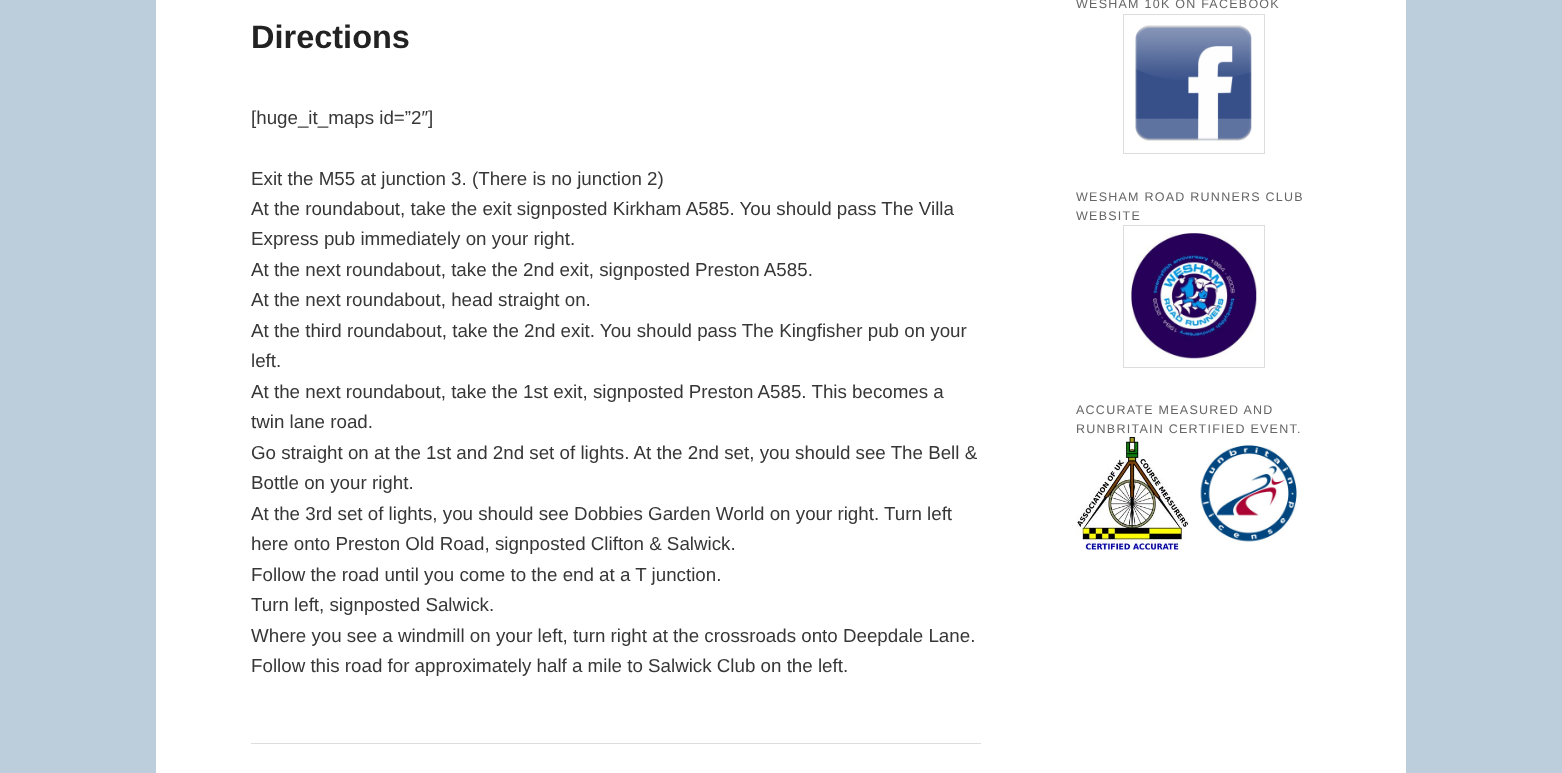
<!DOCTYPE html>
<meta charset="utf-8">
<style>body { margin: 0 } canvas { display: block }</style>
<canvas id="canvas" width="1562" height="773"></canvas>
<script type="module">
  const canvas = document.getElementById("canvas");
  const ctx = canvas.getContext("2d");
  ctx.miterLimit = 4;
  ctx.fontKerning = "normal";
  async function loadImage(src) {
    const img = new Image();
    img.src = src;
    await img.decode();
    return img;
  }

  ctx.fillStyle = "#bccddb";
  ctx.fillRect(0, 0, 1562, 773);
  ctx.fillStyle = "#ffffff";
  ctx.fillRect(156, 0, 1250, 773);
  ctx.fillStyle = "#dddddd";
  ctx.fillRect(251, 743, 730, 1);
  ctx.font = "bold 32.5px Liberation Sans";
  ctx.fillStyle = "#222222";
  ctx.fillText("Directions", 251, 48);
  ctx.font = "18.75px Liberation Sans";
  ctx.fillStyle = "#373737";
  ctx.fillText("[huge_it_maps id=”2″]", 251, 124);
  ctx.fillText("Exit the M55 at junction 3. (There is no junction 2)", 251, 185);
  ctx.fillText("At the roundabout, take the exit signposted Kirkham A585. You should pass The Villa", 251, 215);
  ctx.fillText("Express pub immediately on your right.", 251, 245);
  ctx.fillText("At the next roundabout, take the 2nd exit, signposted Preston A585.", 251, 276);
  ctx.fillText("At the next roundabout, head straight on.", 251, 306);
  ctx.fillText("At the third roundabout, take the 2nd exit. You should pass The Kingfisher pub on your", 251, 337);
  ctx.fillText("left.", 251, 367);
  ctx.fillText("At the next roundabout, take the 1st exit, signposted Preston A585. This becomes a", 251, 398);
  ctx.fillText("twin lane road.", 251, 428);
  ctx.fillText("Go straight on at the 1st and 2nd set of lights. At the 2nd set, you should see The Bell &", 251, 459);
  ctx.fillText("Bottle on your right.", 251, 489);
  ctx.fillText("At the 3rd set of lights, you should see Dobbies Garden World on your right. Turn left", 251, 520);
  ctx.fillText("here onto Preston Old Road, signposted Clifton & Salwick.", 251, 550);
  ctx.fillText("Follow the road until you come to the end at a T junction.", 251, 581);
  ctx.fillText("Turn left, signposted Salwick.", 251, 611);
  ctx.fillText("Where you see a windmill on your left, turn right at the crossroads onto Deepdale Lane.", 251, 642);
  ctx.fillText("Follow this road for approximately half a mile to Salwick Club on the left.", 251, 672);
  ctx.letterSpacing = "1.25px";
  ctx.font = "12.5px Liberation Sans";
  ctx.fillStyle = "#666666";
  ctx.fillText("WESHAM 10K ON FACEBOOK", 1076, 8);
  ctx.strokeStyle = "#dddddd";
  ctx.strokeRect(1123.5, 14.5, 141, 139);
  ctx.drawImage(await loadImage("img1.png"), 1135, 25, 117, 116);
  ctx.fillText("WESHAM ROAD RUNNERS CLUB", 1076, 201);
  ctx.fillText("WEBSITE", 1076, 220);
  ctx.strokeRect(1123.5, 225.5, 141, 142);
  ctx.drawImage(await loadImage("img2.png"), 1131, 233, 126, 126);
  ctx.fillText("ACCURATE MEASURED AND", 1076, 414);
  ctx.fillText("RUNBRITAIN CERTIFIED EVENT.", 1076, 433);
  ctx.drawImage(await loadImage("img3.png"), 1076, 437, 113, 113);
  ctx.drawImage(await loadImage("img4.png"), 1200, 444, 97, 98);
</script>
